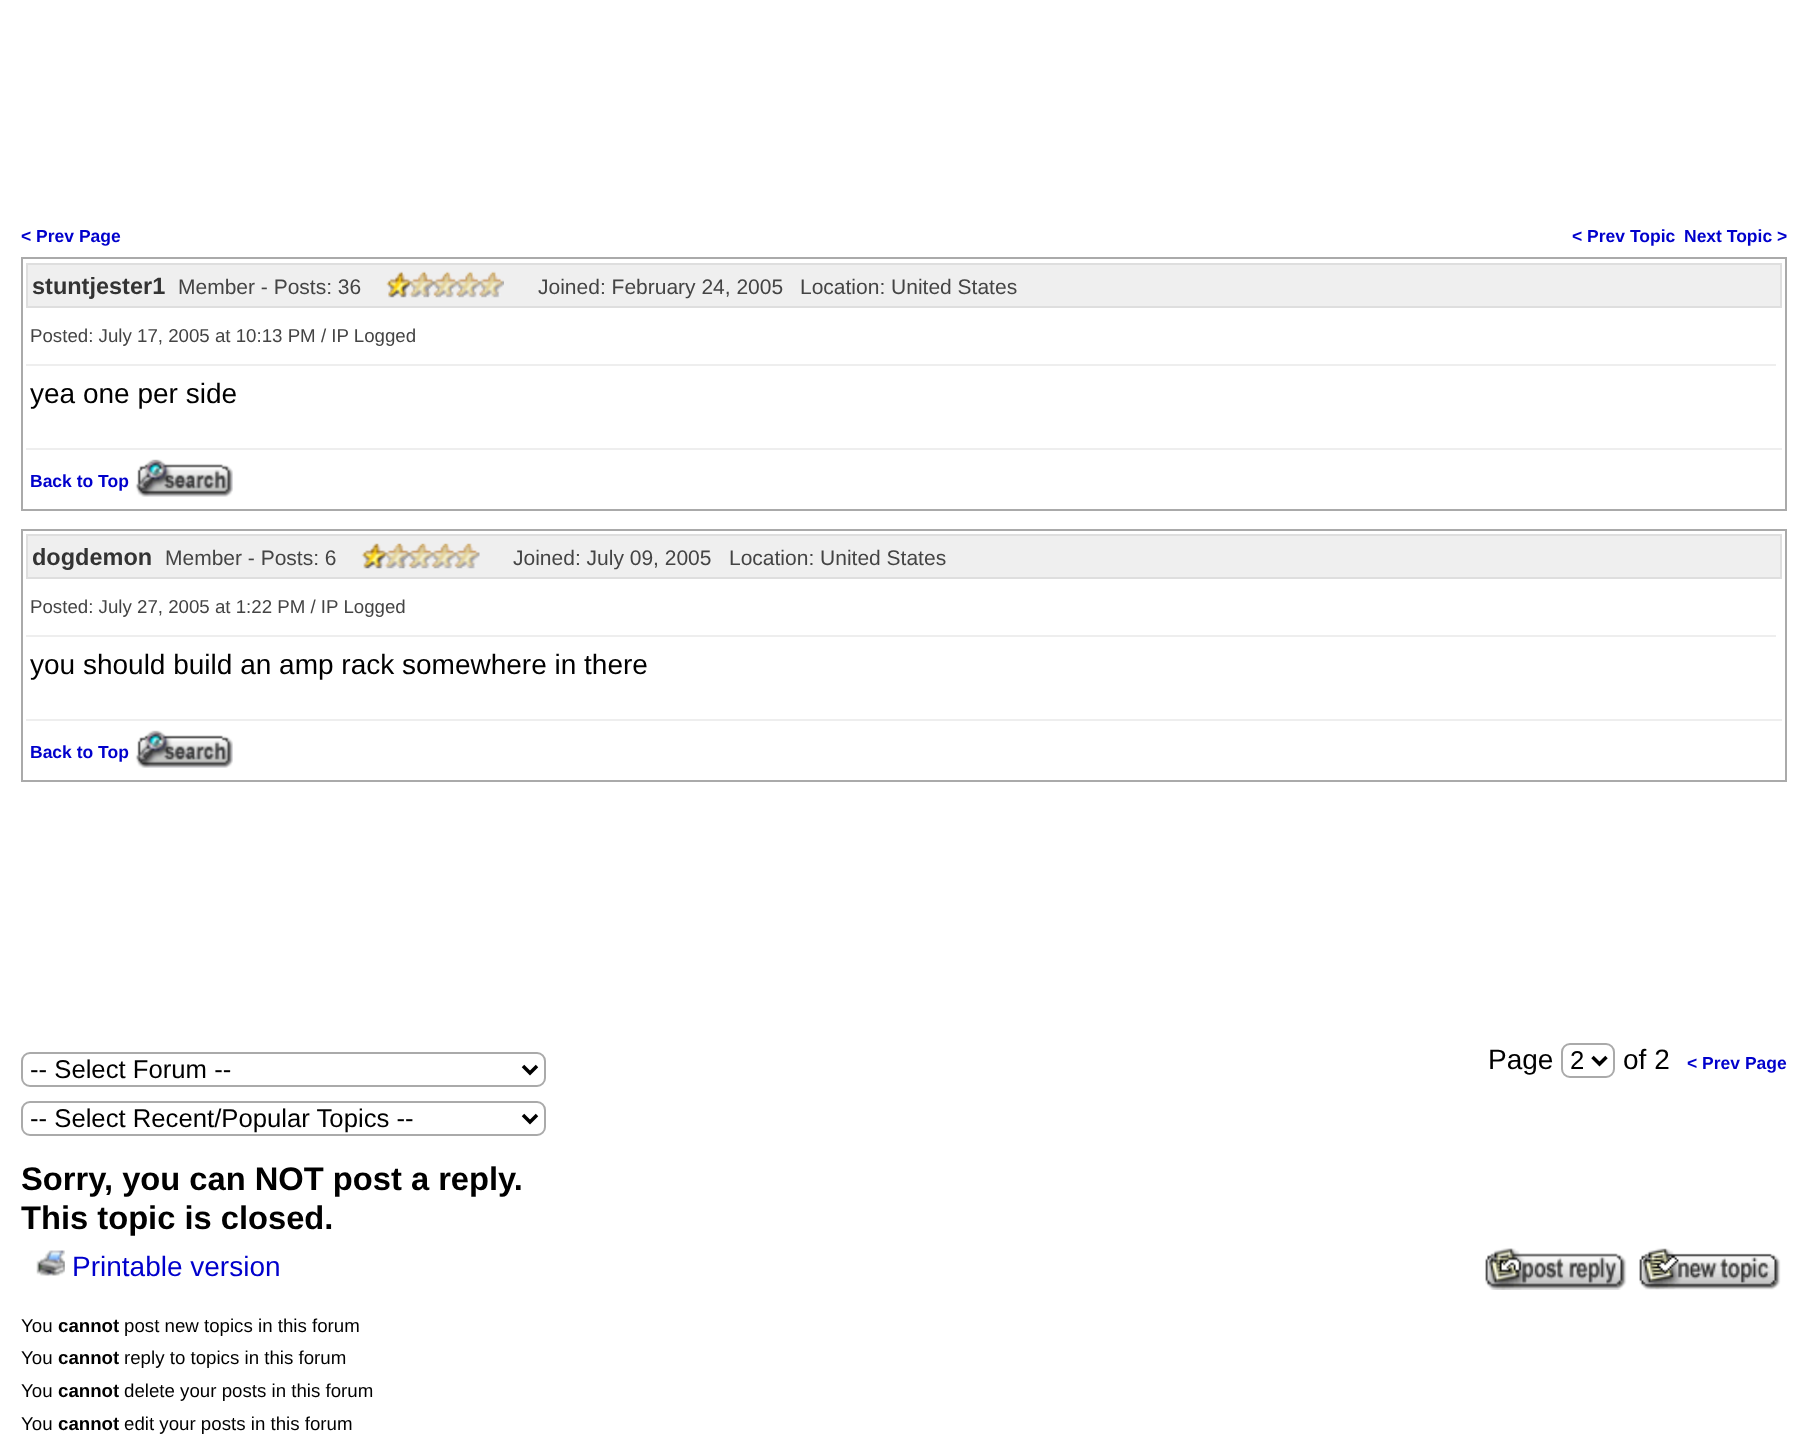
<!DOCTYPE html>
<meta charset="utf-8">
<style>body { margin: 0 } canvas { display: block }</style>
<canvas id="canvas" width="1807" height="1440"></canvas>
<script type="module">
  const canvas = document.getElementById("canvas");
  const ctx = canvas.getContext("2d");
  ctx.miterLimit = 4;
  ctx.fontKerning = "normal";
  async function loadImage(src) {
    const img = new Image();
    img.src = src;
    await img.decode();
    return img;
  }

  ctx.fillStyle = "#ffffff";
  ctx.fillRect(0, 0, 1807, 1440);
  ctx.font = "bold 17.5px Liberation Sans";
  ctx.fillStyle = "#0000cc";
  ctx.fillText("< Prev Page", 21, 242);
  ctx.fillText("< Prev Topic", 1572, 242);
  ctx.fillText("Next Topic >", 1684, 242);
  ctx.strokeStyle = "#aaaaaa";
  ctx.lineWidth = 2;
  ctx.strokeRect(22, 258, 1764, 252);
  ctx.fillStyle = "#efefef";
  ctx.beginPath();
  ctx.rect(27, 264, 1754, 43);
  ctx.fill();
  ctx.strokeStyle = "#dedede";
  ctx.stroke();
  ctx.font = "bold 23.5px Liberation Sans";
  ctx.fillStyle = "#333333";
  ctx.fillText("stuntjester1", 32, 294);
  ctx.font = "21px Liberation Sans";
  ctx.fillStyle = "#444444";
  ctx.fillText("Member - Posts: 36", 178, 294);
  ctx.drawImage(await loadImage("img1.png"), 386, 271, 118, 27);
  ctx.fillText("Joined: February 24, 2005", 538, 294);
  ctx.fillText("Location: United States", 800, 294);
  ctx.font = "18.7px Liberation Sans";
  ctx.fillText("Posted: July 17, 2005 at 10:13 PM / IP Logged", 30, 342);
  ctx.fillStyle = "#eeeeee";
  ctx.fillRect(26, 364, 1750, 2);
  ctx.font = "28px Liberation Sans";
  ctx.fillStyle = "#000000";
  ctx.fillText("yea one per side", 30, 403);
  ctx.fillStyle = "#eeeeee";
  ctx.fillRect(26, 448, 1756, 2);
  ctx.font = "bold 17.5px Liberation Sans";
  ctx.fillStyle = "#0000cc";
  ctx.fillText("Back to Top", 30, 487);
  ctx.drawImage(await loadImage("img2.png"), 135, 459, 98, 38);
  ctx.strokeStyle = "#aaaaaa";
  ctx.strokeRect(22, 530, 1764, 251);
  ctx.fillStyle = "#efefef";
  ctx.beginPath();
  ctx.rect(27, 535, 1754, 43);
  ctx.fill();
  ctx.strokeStyle = "#dedede";
  ctx.stroke();
  ctx.font = "bold 23.5px Liberation Sans";
  ctx.fillStyle = "#333333";
  ctx.fillText("dogdemon", 32, 565);
  ctx.font = "21px Liberation Sans";
  ctx.fillStyle = "#444444";
  ctx.fillText("Member - Posts: 6", 165, 565);
  ctx.drawImage(await loadImage("img3.png"), 361, 543, 119, 26);
  ctx.fillText("Joined: July 09, 2005", 513, 565);
  ctx.fillText("Location: United States", 729, 565);
  ctx.font = "18.7px Liberation Sans";
  ctx.fillText("Posted: July 27, 2005 at 1:22 PM / IP Logged", 30, 613);
  ctx.fillStyle = "#eeeeee";
  ctx.fillRect(26, 635, 1750, 2);
  ctx.font = "28px Liberation Sans";
  ctx.fillStyle = "#000000";
  ctx.fillText("you should build an amp rack somewhere in there", 30, 674);
  ctx.fillStyle = "#eeeeee";
  ctx.fillRect(26, 719, 1756, 2);
  ctx.font = "bold 17.5px Liberation Sans";
  ctx.fillStyle = "#0000cc";
  ctx.fillText("Back to Top", 30, 758);
  ctx.drawImage(await loadImage("img4.png"), 135, 730, 98, 38);
  ctx.beginPath();
  ctx.roundRect(22, 1053, 523, 33, 8);
  ctx.strokeStyle = "#aaaaaa";
  ctx.stroke();
  ctx.beginPath();
  ctx.moveTo(523, 1066);
  ctx.lineTo(530, 1073);
  ctx.lineTo(537, 1066);
  ctx.strokeStyle = "#000000";
  ctx.lineWidth = 3.5;
  ctx.stroke();
  ctx.font = "25.7px Liberation Sans";
  ctx.fillStyle = "#000000";
  ctx.fillText("-- Select Forum --", 30, 1078);
  ctx.beginPath();
  ctx.roundRect(22, 1102, 523, 33, 8);
  ctx.strokeStyle = "#aaaaaa";
  ctx.lineWidth = 2;
  ctx.stroke();
  ctx.beginPath();
  ctx.moveTo(523, 1115);
  ctx.lineTo(530, 1122);
  ctx.lineTo(537, 1115);
  ctx.strokeStyle = "#000000";
  ctx.lineWidth = 3.5;
  ctx.stroke();
  ctx.fillText("-- Select Recent/Popular Topics --", 30, 1127);
  ctx.font = "28px Liberation Sans";
  ctx.fillText("Page", 1488, 1069);
  ctx.beginPath();
  ctx.roundRect(1562, 1044, 52, 33, 8);
  ctx.strokeStyle = "#aaaaaa";
  ctx.lineWidth = 2;
  ctx.stroke();
  ctx.beginPath();
  ctx.moveTo(1592.5, 1057);
  ctx.lineTo(1599.5, 1064);
  ctx.lineTo(1606.5, 1057);
  ctx.strokeStyle = "#000000";
  ctx.lineWidth = 3.5;
  ctx.stroke();
  ctx.font = "25.7px Liberation Sans";
  ctx.fillText("2", 1570, 1069);
  ctx.font = "28px Liberation Sans";
  ctx.fillText("of 2", 1623, 1069);
  ctx.font = "bold 17.5px Liberation Sans";
  ctx.fillStyle = "#0000cc";
  ctx.fillText("< Prev Page", 1687, 1069);
  ctx.font = "bold 32.7px Liberation Sans";
  ctx.fillStyle = "#000000";
  ctx.fillText("Sorry, you can NOT post a reply.", 21, 1190);
  ctx.fillText("This topic is closed.", 21, 1229);
  ctx.drawImage(await loadImage("img5.png"), 36, 1250, 29, 26);
  ctx.font = "28px Liberation Sans";
  ctx.fillStyle = "#0000cc";
  ctx.fillText("Printable version", 72, 1276);
  ctx.drawImage(await loadImage("img6.png"), 1485, 1248, 142, 42);
  ctx.drawImage(await loadImage("img7.png"), 1639, 1248, 142, 42);
  ctx.font = "18.7px Liberation Sans";
  ctx.fillStyle = "#000000";
  ctx.fillText("You", 21, 1332);
  ctx.font = "bold 18.7px Liberation Sans";
  ctx.fillText("cannot", 58, 1332);
  ctx.font = "18.7px Liberation Sans";
  ctx.fillText("post new topics in this forum", 124, 1332);
  ctx.fillText("You", 21, 1364);
  ctx.font = "bold 18.7px Liberation Sans";
  ctx.fillText("cannot", 58, 1364);
  ctx.font = "18.7px Liberation Sans";
  ctx.fillText("reply to topics in this forum", 124, 1364);
  ctx.fillText("You", 21, 1397);
  ctx.font = "bold 18.7px Liberation Sans";
  ctx.fillText("cannot", 58, 1397);
  ctx.font = "18.7px Liberation Sans";
  ctx.fillText("delete your posts in this forum", 124, 1397);
  ctx.fillText("You", 21, 1430);
  ctx.font = "bold 18.7px Liberation Sans";
  ctx.fillText("cannot", 58, 1430);
  ctx.font = "18.7px Liberation Sans";
  ctx.fillText("edit your posts in this forum", 124, 1430);
</script>
